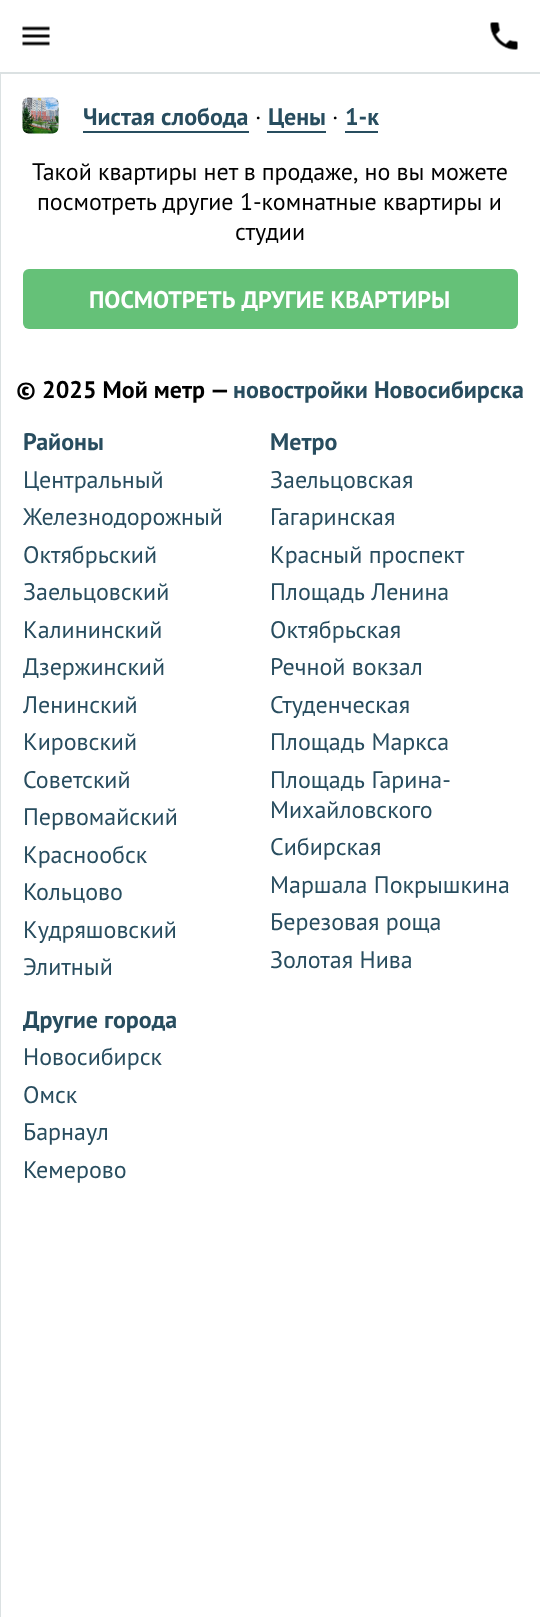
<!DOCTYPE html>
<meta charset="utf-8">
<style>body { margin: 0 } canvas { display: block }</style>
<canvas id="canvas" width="540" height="1617"></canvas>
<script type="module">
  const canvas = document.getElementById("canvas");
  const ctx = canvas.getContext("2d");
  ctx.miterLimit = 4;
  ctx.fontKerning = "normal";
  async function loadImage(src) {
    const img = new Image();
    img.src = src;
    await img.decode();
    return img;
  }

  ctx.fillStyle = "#ffffff";
  ctx.fillRect(0, 0, 540, 1617);
  ctx.fillStyle = "#dbe1e2";
  ctx.fillRect(0, 72, 540, 2);
  ctx.drawImage(await loadImage("img1.png"), 22, 26, 28, 20);
  ctx.drawImage(await loadImage("img2.png"), 490, 22, 28, 28);
  ctx.fillRect(0, 74, 1, 1543);
  ctx.drawImage(await loadImage("img3.png"), 22, 97, 37, 37);
  ctx.font = "bold 24px PT Sans";
  ctx.fillStyle = "#284d5f";
  ctx.fillText("Чистая слобода", 83, 125);
  ctx.fillRect(83, 131, 166, 2);
  ctx.font = "24px PT Sans";
  ctx.fillStyle = "#000000";
  ctx.fillText("·", 255, 125);
  ctx.font = "bold 24px PT Sans";
  ctx.fillStyle = "#284d5f";
  ctx.fillText("Цены", 268, 125);
  ctx.fillRect(267, 131, 59, 2);
  ctx.font = "24px PT Sans";
  ctx.fillStyle = "#000000";
  ctx.fillText("·", 332, 125);
  ctx.font = "bold 24px PT Sans";
  ctx.fillStyle = "#284d5f";
  ctx.fillText("1-к", 345, 125);
  ctx.fillRect(345, 131, 33, 2);
  ctx.wordSpacing = "-0.25px";
  ctx.font = "24px PT Sans";
  ctx.fillStyle = "#000000";
  ctx.fillText("Такой квартиры нет в продаже, но вы можете", 32, 180);
  ctx.wordSpacing = "0px";
  ctx.fillText("посмотреть другие 1-комнатные квартиры и", 37, 210);
  ctx.fillText("студии", 235, 240);
  ctx.fillStyle = "#65c178";
  ctx.beginPath();
  ctx.roundRect(23, 269, 495, 60, 6);
  ctx.fill();
  ctx.font = "bold 24px PT Sans";
  ctx.fillStyle = "#ffffff";
  ctx.fillText("ПОСМОТРЕТЬ ДРУГИЕ КВАРТИРЫ", 89, 308);
  ctx.fillStyle = "#000000";
  ctx.fillText("© 2025 Мой метр —", 16, 398);
  ctx.fillStyle = "#284d5f";
  ctx.fillText("новостройки Новосибирска", 233, 398);
  ctx.fillText("Районы", 23, 450);
  ctx.font = "24px PT Sans";
  ctx.fillText("Центральный", 23, 488);
  ctx.fillText("Железнодорожный", 23, 525);
  ctx.fillText("Октябрьский", 23, 563);
  ctx.fillText("Заельцовский", 23, 600);
  ctx.fillText("Калининский", 23, 638);
  ctx.save();
  ctx.beginPath();
  ctx.rect(23, 426, 247, 555);
  ctx.clip();
  ctx.fillText("Дзержинский", 23, 675);
  ctx.restore();
  ctx.fillText("Ленинский", 23, 713);
  ctx.fillText("Кировский", 23, 750);
  ctx.fillText("Советский", 23, 788);
  ctx.fillText("Первомайский", 23, 825);
  ctx.fillText("Краснообск", 23, 863);
  ctx.fillText("Кольцово", 23, 900);
  ctx.fillText("Кудряшовский", 23, 938);
  ctx.fillText("Элитный", 23, 975);
  ctx.save();
  ctx.beginPath();
  ctx.rect(23, 426, 495, 758);
  ctx.clip();
  ctx.font = "bold 24px PT Sans";
  ctx.fillText("Другие города", 23, 1028);
  ctx.restore();
  ctx.fillText("Новосибирск", 23, 1065);
  ctx.fillText("Омск", 23, 1103);
  ctx.fillText("Барнаул", 23, 1140);
  ctx.fillText("Кемерово", 23, 1178);
  ctx.font = "bold 24px PT Sans";
  ctx.fillText("Метро", 270, 450);
  ctx.font = "24px PT Sans";
  ctx.fillText("Заельцовская", 270, 488);
  ctx.fillText("Гагаринская", 270, 525);
  ctx.fillText("Красный проспект", 270, 563);
  ctx.wordSpacing = "1px";
  ctx.fillText("Площадь Ленина", 270, 600);
  ctx.wordSpacing = "0px";
  ctx.fillText("Октябрьская", 270, 638);
  ctx.fillText("Речной вокзал", 270, 675);
  ctx.fillText("Студенческая", 270, 713);
  ctx.wordSpacing = "1px";
  ctx.fillText("Площадь Маркса", 270, 750);
  ctx.fillText("Площадь Гарина-", 270, 788);
  ctx.wordSpacing = "0px";
  ctx.fillText("Михайловского", 270, 818);
  ctx.fillText("Сибирская", 270, 855);
  ctx.fillText("Маршала Покрышкина", 270, 893);
  ctx.fillText("Березовая роща", 270, 930);
  ctx.fillText("Золотая Нива", 270, 968);
</script>
